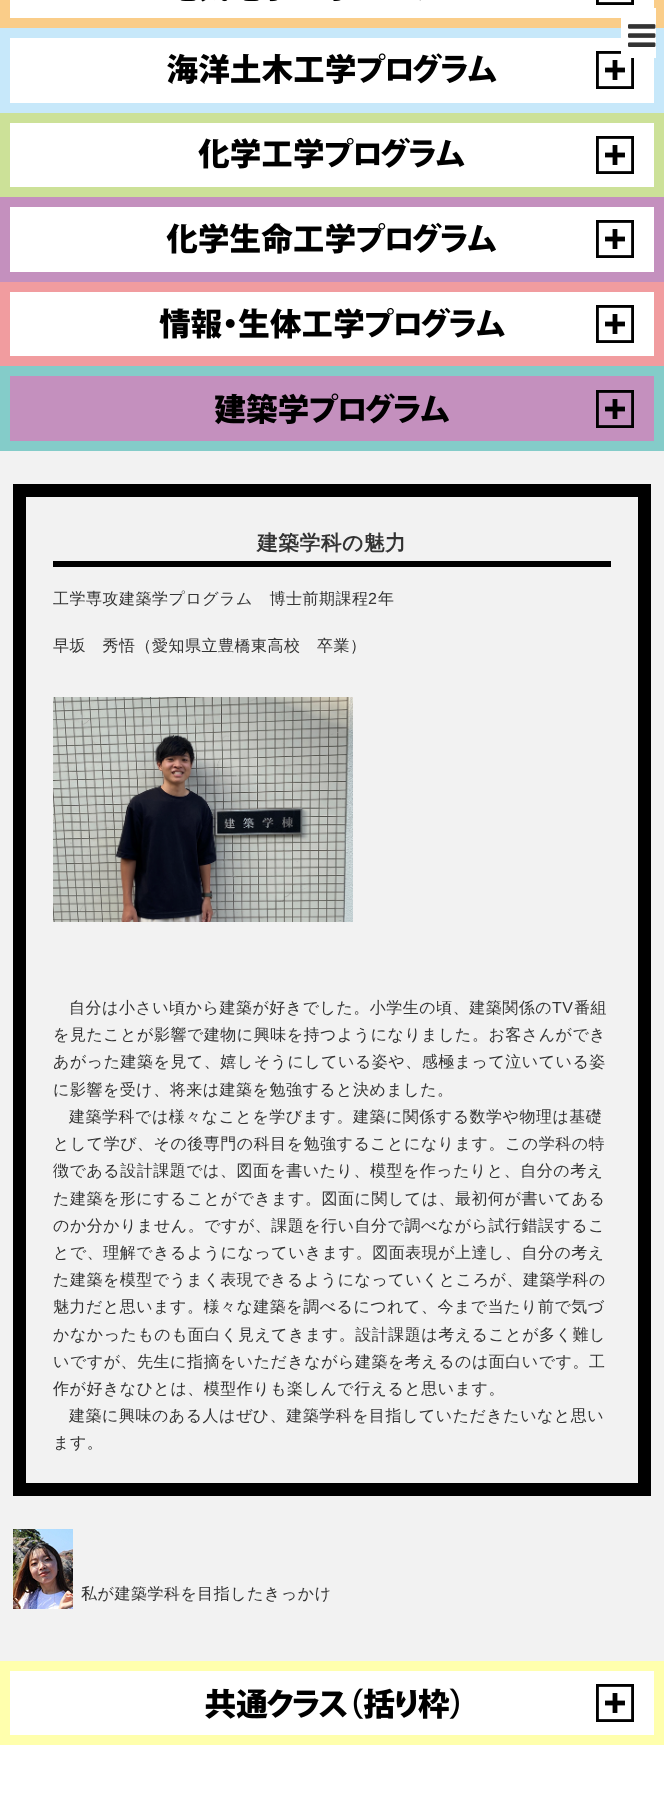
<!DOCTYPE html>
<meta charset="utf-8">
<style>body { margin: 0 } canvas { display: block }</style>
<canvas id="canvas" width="664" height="1806"></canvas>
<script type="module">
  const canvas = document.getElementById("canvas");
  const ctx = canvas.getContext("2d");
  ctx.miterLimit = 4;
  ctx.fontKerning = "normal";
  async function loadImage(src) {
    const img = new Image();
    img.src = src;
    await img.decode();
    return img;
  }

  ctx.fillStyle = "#ffffff";
  ctx.fillRect(0, 0, 664, 1806);
  ctx.strokeStyle = "#facd89";
  ctx.lineWidth = 10;
  ctx.strokeRect(5, -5, 654, 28);
  ctx.strokeStyle = "#c7e8fa";
  ctx.strokeRect(5, 33, 654, 75);
  ctx.drawImage(await loadImage("img5.png"), 596, 51, 38, 38);
  ctx.fillRect(621, 8, 35, 50);
  ctx.drawImage(await loadImage("img1.png"), 628, 24, 28, 23);
  ctx.drawImage(await loadImage("img2.png"), 180, 0, 241, 2);
  ctx.drawImage(await loadImage("img3.png"), 596, 0, 38, 5);
  ctx.drawImage(await loadImage("img4.png"), 167, 53, 330, 31);
  ctx.strokeStyle = "#cce198";
  ctx.strokeRect(5, 118, 654, 74);
  ctx.drawImage(await loadImage("img6.png"), 198, 137, 267, 32);
  ctx.drawImage(await loadImage("img5.png"), 596, 136, 38, 38);
  ctx.strokeStyle = "#c490be";
  ctx.strokeRect(5, 202, 654, 75);
  ctx.drawImage(await loadImage("img7.png"), 166, 222, 330, 32);
  ctx.drawImage(await loadImage("img5.png"), 596, 220, 38, 38);
  ctx.strokeStyle = "#f19c9f";
  ctx.strokeRect(5, 287, 654, 74);
  ctx.drawImage(await loadImage("img8.png"), 159, 307, 346, 32);
  ctx.drawImage(await loadImage("img5.png"), 596, 305, 38, 38);
  ctx.fillStyle = "#c490be";
  ctx.beginPath();
  ctx.rect(5, 371, 654, 75);
  ctx.fill();
  ctx.strokeStyle = "#84ccc9";
  ctx.stroke();
  ctx.drawImage(await loadImage("img9.png"), 215, 393, 234, 32);
  ctx.drawImage(await loadImage("img10.png"), 596, 390, 38, 38);
  ctx.fillStyle = "#f2f2f2";
  ctx.fillRect(0, 451, 664, 1210);
  ctx.strokeStyle = "#000000";
  ctx.lineWidth = 13;
  ctx.strokeRect(19.5, 490.5, 625, 999);
  ctx.fillStyle = "#000000";
  ctx.fillRect(53, 561, 558, 6);
  ctx.letterSpacing = "0.5px";
  ctx.font = "bold 20.75px WenQuanYi Zen Hei";
  ctx.fillStyle = "#333333";
  ctx.fillText("建築学科の魅力", 257, 550);
  ctx.font = "500 16px WenQuanYi Zen Hei";
  ctx.fillText("工学専攻建築学プログラム　博士前期課程", 53, 604);
  ctx.font = "16px Liberation Sans";
  ctx.fillText("2", 368, 604);
  ctx.font = "500 16px WenQuanYi Zen Hei";
  ctx.fillText("年", 378, 604);
  ctx.fillText("早坂　秀悟（愛知県立豊橋東高校　卒業）", 53, 651);
  ctx.drawImage(await loadImage("img11.png"), 53, 697, 300, 225);
  ctx.fillText("自分は小さい頃から建築が好きでした。小学生の頃、建築関係の", 69, 1013);
  ctx.font = "16px Liberation Sans";
  ctx.fillText("TV", 552, 1013);
  ctx.font = "500 16px WenQuanYi Zen Hei";
  ctx.fillText("番組", 574, 1013);
  ctx.fillText("を見たことが影響で建物に興味を持つようになりました。お客さんができ", 53, 1040);
  ctx.fillText("あがった建築を見て、嬉しそうにしている姿や、感極まって泣いている姿", 53, 1067);
  ctx.fillText("に影響を受け、将来は建築を勉強すると決めました。", 53, 1095);
  ctx.fillText("建築学科では様々なことを学びます。建築に関係する数学や物理は基礎", 69, 1122);
  ctx.fillText("として学び、その後専門の科目を勉強することになります。この学科の特", 53, 1149);
  ctx.fillText("徴である設計課題では、図面を書いたり、模型を作ったりと、自分の考え", 53, 1176);
  ctx.fillText("た建築を形にすることができます。図面に関しては、最初何が書いてある", 53, 1204);
  ctx.fillText("のか分かりません。ですが、課題を行い自分で調べながら試行錯誤するこ", 53, 1231);
  ctx.fillText("とで、理解できるようになっていきます。図面表現が上達し、自分の考え", 53, 1258);
  ctx.fillText("た建築を模型でうまく表現できるようになっていくところが、建築学科の", 53, 1285);
  ctx.fillText("魅力だと思います。様々な建築を調べるにつれて、今まで当たり前で気づ", 53, 1312);
  ctx.fillText("かなかったものも面白く見えてきます。設計課題は考えることが多く難し", 53, 1340);
  ctx.fillText("いですが、先生に指摘をいただきながら建築を考えるのは面白いです。工", 53, 1367);
  ctx.fillText("作が好きなひとは、模型作りも楽しんで行えると思います。", 53, 1394);
  ctx.fillText("建築に興味のある人はぜひ、建築学科を目指していただきたいなと思い", 69, 1421);
  ctx.fillText("ます。", 53, 1448);
  ctx.drawImage(await loadImage("img12.png"), 13, 1529, 60, 80);
  ctx.fillText("私が建築学科を目指したきっかけ", 81, 1599);
  ctx.strokeStyle = "#ffffad";
  ctx.lineWidth = 10;
  ctx.strokeRect(5, 1666, 654, 74);
  ctx.drawImage(await loadImage("img13.png"), 205, 1688, 254, 31);
  ctx.drawImage(await loadImage("img5.png"), 596, 1684, 38, 38);
</script>
